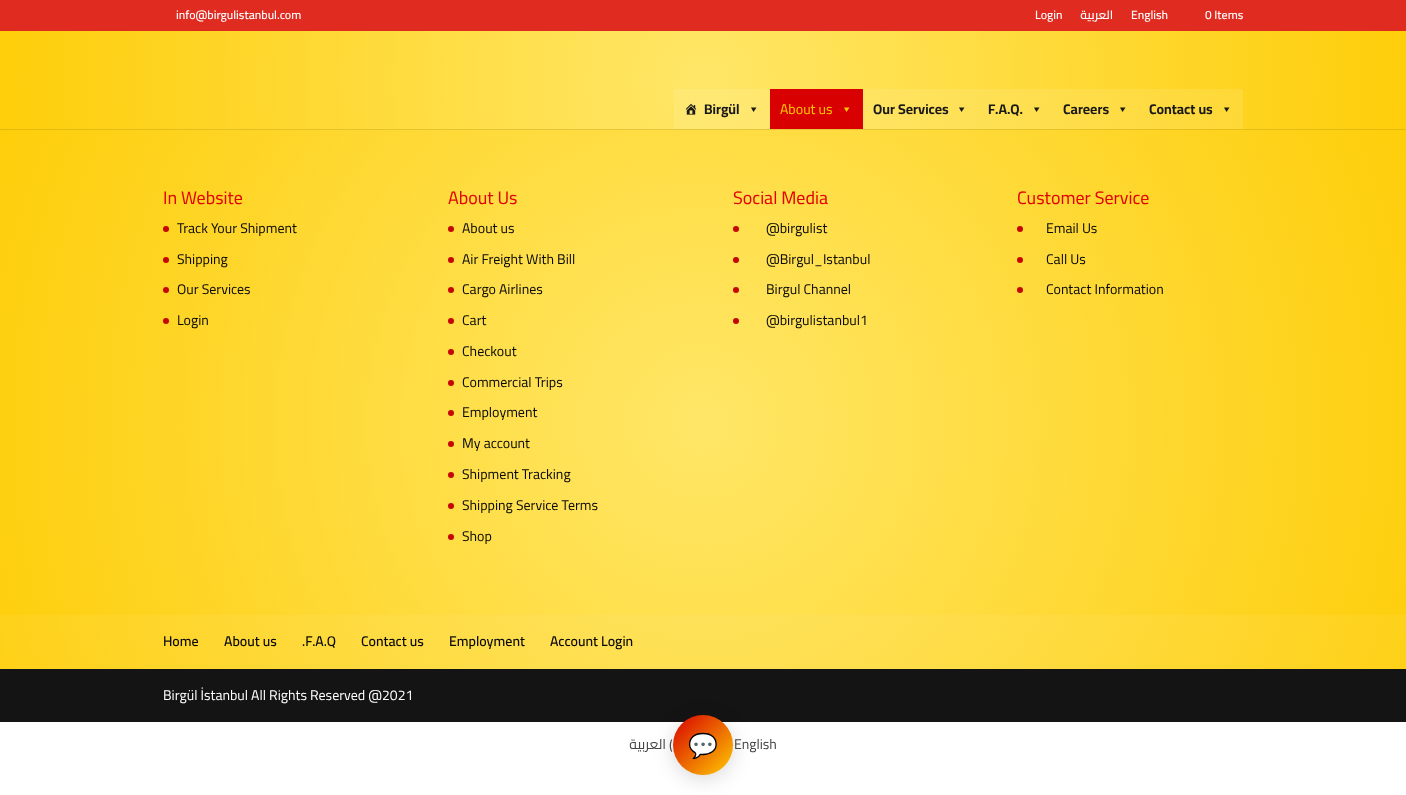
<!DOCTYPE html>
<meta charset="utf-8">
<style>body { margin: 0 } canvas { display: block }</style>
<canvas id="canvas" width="1406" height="795"></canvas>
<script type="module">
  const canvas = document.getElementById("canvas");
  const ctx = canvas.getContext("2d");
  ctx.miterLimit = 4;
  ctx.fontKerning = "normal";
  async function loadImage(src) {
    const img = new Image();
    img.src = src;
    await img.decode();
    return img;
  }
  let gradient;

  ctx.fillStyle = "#ffffff";
  ctx.fillRect(0, 0, 1406, 795);
  ctx.fillStyle = "#e02b20";
  ctx.fillRect(0, 0, 1406, 31);
  ctx.font = "600 12px Cairo";
  ctx.fillStyle = "#ffffff";
  ctx.fillText("info@birgulistanbul.com", 176, 19);
  ctx.fillText("Login", 1035, 19);
  ctx.direction = "rtl";
  ctx.fillText("العربية", 1113, 19);
  ctx.direction = "ltr";
  ctx.fillText("English", 1131, 19);
  ctx.fillText("0 Items", 1205, 19);
  gradient = ctx.createRadialGradient(703, 80, 0, 703, 80, 705);
  gradient.addColorStop(0, "#ffe667");
  gradient.addColorStop(1, "#fece0a");
  ctx.fillStyle = gradient;
  ctx.fillRect(0, 31, 1406, 98);
  gradient = ctx.createRadialGradient(703, 80, 0, 703, 80, 705);
  gradient.addColorStop(0, "#ffe976");
  gradient.addColorStop(1, "#fed323");
  ctx.fillStyle = gradient;
  ctx.fillRect(674, 89, 569, 40);
  ctx.drawImage(await loadImage("img1.png"), 685, 103, 12, 12);
  ctx.font = "bold 14px Cairo";
  ctx.fillStyle = "#181818";
  ctx.fillText("Birgül", 704, 114);
  ctx.beginPath();
  ctx.moveTo(756.5, 107.5);
  ctx.lineTo(753.5, 112);
  ctx.lineTo(751, 107.5);
  ctx.closePath();
  ctx.fill();
  ctx.fillStyle = "#d80000";
  ctx.fillRect(770, 89, 93, 40);
  ctx.font = "14px Cairo";
  ctx.fillStyle = "#ffcc00";
  ctx.fillText("About us", 780, 114);
  ctx.beginPath();
  ctx.moveTo(849.5, 107.5);
  ctx.lineTo(846.5, 112);
  ctx.lineTo(844, 107.5);
  ctx.closePath();
  ctx.fill();
  ctx.font = "bold 14px Cairo";
  ctx.fillStyle = "#181818";
  ctx.fillText("Our Services", 873, 114);
  ctx.beginPath();
  ctx.moveTo(964.5, 107.5);
  ctx.lineTo(961.5, 112);
  ctx.lineTo(959, 107.5);
  ctx.closePath();
  ctx.fill();
  ctx.fillText("F.A.Q.", 988, 114);
  ctx.beginPath();
  ctx.moveTo(1039.5, 107.5);
  ctx.lineTo(1036.5, 112);
  ctx.lineTo(1034, 107.5);
  ctx.closePath();
  ctx.fill();
  ctx.fillText("Careers", 1063, 114);
  ctx.beginPath();
  ctx.moveTo(1125.5, 107.5);
  ctx.lineTo(1122.5, 112);
  ctx.lineTo(1120, 107.5);
  ctx.closePath();
  ctx.fill();
  ctx.fillText("Contact us", 1149, 114);
  ctx.beginPath();
  ctx.moveTo(1229.5, 107.5);
  ctx.lineTo(1226.5, 112);
  ctx.lineTo(1224, 107.5);
  ctx.closePath();
  ctx.fill();
  gradient = ctx.createRadialGradient(703, 423, 0, 703, 423, 764);
  gradient.addColorStop(0, "#ffe667");
  gradient.addColorStop(1, "#fece0a");
  ctx.fillStyle = gradient;
  ctx.fillRect(0, 130, 1406, 485);
  gradient = ctx.createRadialGradient(703, 423, 0, 703, 423, 764);
  gradient.addColorStop(0, "#e6cf5d");
  gradient.addColorStop(1, "#e5b909");
  ctx.fillStyle = gradient;
  ctx.fillRect(0, 129, 1406, 1);
  gradient = ctx.createRadialGradient(703, 423, 0, 703, 423, 764);
  gradient.addColorStop(0, "#ffe76f");
  gradient.addColorStop(1, "#fed016");
  ctx.fillStyle = gradient;
  ctx.fillRect(0, 615, 1406, 54);
  ctx.font = "18px Cairo";
  ctx.fillStyle = "#e40000";
  ctx.fillText("In Website", 163, 204);
  ctx.fillStyle = "#c60505";
  ctx.beginPath();
  ctx.arc(166, 229, 3, 0, Math.PI * 2);
  ctx.fill();
  ctx.font = "14px Cairo";
  ctx.fillStyle = "#0a0a0a";
  ctx.fillText("Track Your Shipment", 177, 233);
  ctx.fillStyle = "#c60505";
  ctx.beginPath();
  ctx.arc(166, 260, 3, 0, Math.PI * 2);
  ctx.fill();
  ctx.fillStyle = "#0a0a0a";
  ctx.fillText("Shipping", 177, 264);
  ctx.fillStyle = "#c60505";
  ctx.beginPath();
  ctx.arc(166, 290, 3, 0, Math.PI * 2);
  ctx.fill();
  ctx.fillStyle = "#0a0a0a";
  ctx.fillText("Our Services", 177, 294);
  ctx.fillStyle = "#c60505";
  ctx.beginPath();
  ctx.arc(166, 321, 3, 0, Math.PI * 2);
  ctx.fill();
  ctx.fillStyle = "#0a0a0a";
  ctx.fillText("Login", 177, 325);
  ctx.font = "18px Cairo";
  ctx.fillStyle = "#e40000";
  ctx.fillText("About Us", 448, 204);
  ctx.fillStyle = "#c60505";
  ctx.beginPath();
  ctx.arc(451, 229, 3, 0, Math.PI * 2);
  ctx.fill();
  ctx.font = "14px Cairo";
  ctx.fillStyle = "#0a0a0a";
  ctx.fillText("About us", 462, 233);
  ctx.fillStyle = "#c60505";
  ctx.beginPath();
  ctx.arc(451, 260, 3, 0, Math.PI * 2);
  ctx.fill();
  ctx.fillStyle = "#0a0a0a";
  ctx.fillText("Air Freight With Bill", 462, 264);
  ctx.fillStyle = "#c60505";
  ctx.beginPath();
  ctx.arc(451, 290, 3, 0, Math.PI * 2);
  ctx.fill();
  ctx.fillStyle = "#0a0a0a";
  ctx.fillText("Cargo Airlines", 462, 294);
  ctx.fillStyle = "#c60505";
  ctx.beginPath();
  ctx.arc(451, 321, 3, 0, Math.PI * 2);
  ctx.fill();
  ctx.fillStyle = "#0a0a0a";
  ctx.fillText("Cart", 462, 325);
  ctx.fillStyle = "#c60505";
  ctx.beginPath();
  ctx.arc(451, 352, 3, 0, Math.PI * 2);
  ctx.fill();
  ctx.fillStyle = "#0a0a0a";
  ctx.fillText("Checkout", 462, 356);
  ctx.fillStyle = "#c60505";
  ctx.beginPath();
  ctx.arc(451, 383, 3, 0, Math.PI * 2);
  ctx.fill();
  ctx.fillStyle = "#0a0a0a";
  ctx.fillText("Commercial Trips", 462, 387);
  ctx.fillStyle = "#c60505";
  ctx.beginPath();
  ctx.arc(451, 413, 3, 0, Math.PI * 2);
  ctx.fill();
  ctx.fillStyle = "#0a0a0a";
  ctx.fillText("Employment", 462, 417);
  ctx.fillStyle = "#c60505";
  ctx.beginPath();
  ctx.arc(451, 444, 3, 0, Math.PI * 2);
  ctx.fill();
  ctx.fillStyle = "#0a0a0a";
  ctx.fillText("My account", 462, 448);
  ctx.fillStyle = "#c60505";
  ctx.beginPath();
  ctx.arc(451, 475, 3, 0, Math.PI * 2);
  ctx.fill();
  ctx.fillStyle = "#0a0a0a";
  ctx.fillText("Shipment Tracking", 462, 479);
  ctx.fillStyle = "#c60505";
  ctx.beginPath();
  ctx.arc(451, 506, 3, 0, Math.PI * 2);
  ctx.fill();
  ctx.fillStyle = "#0a0a0a";
  ctx.fillText("Shipping Service Terms", 462, 510);
  ctx.fillStyle = "#c60505";
  ctx.beginPath();
  ctx.arc(451, 537, 3, 0, Math.PI * 2);
  ctx.fill();
  ctx.fillStyle = "#0a0a0a";
  ctx.fillText("Shop", 462, 541);
  ctx.font = "18px Cairo";
  ctx.fillStyle = "#e40000";
  ctx.fillText("Social Media", 733, 204);
  ctx.fillStyle = "#c60505";
  ctx.beginPath();
  ctx.arc(736, 229, 3, 0, Math.PI * 2);
  ctx.fill();
  ctx.font = "14px Cairo";
  ctx.fillStyle = "#0a0a0a";
  ctx.fillText("@birgulist", 766, 233);
  ctx.fillStyle = "#c60505";
  ctx.beginPath();
  ctx.arc(736, 260, 3, 0, Math.PI * 2);
  ctx.fill();
  ctx.fillStyle = "#0a0a0a";
  ctx.fillText("@Birgul_Istanbul", 766, 264);
  ctx.fillStyle = "#c60505";
  ctx.beginPath();
  ctx.arc(736, 290, 3, 0, Math.PI * 2);
  ctx.fill();
  ctx.fillStyle = "#0a0a0a";
  ctx.fillText("Birgul Channel", 766, 294);
  ctx.fillStyle = "#c60505";
  ctx.beginPath();
  ctx.arc(736, 321, 3, 0, Math.PI * 2);
  ctx.fill();
  ctx.fillStyle = "#0a0a0a";
  ctx.fillText("@birgulistanbul1", 766, 325);
  ctx.font = "18px Cairo";
  ctx.fillStyle = "#e40000";
  ctx.fillText("Customer Service", 1017, 204);
  ctx.fillStyle = "#c60505";
  ctx.beginPath();
  ctx.arc(1020, 229, 3, 0, Math.PI * 2);
  ctx.fill();
  ctx.font = "14px Cairo";
  ctx.fillStyle = "#0a0a0a";
  ctx.fillText("Email Us", 1046, 233);
  ctx.fillStyle = "#c60505";
  ctx.beginPath();
  ctx.arc(1020, 260, 3, 0, Math.PI * 2);
  ctx.fill();
  ctx.fillStyle = "#0a0a0a";
  ctx.fillText("Call Us", 1046, 264);
  ctx.fillStyle = "#c60505";
  ctx.beginPath();
  ctx.arc(1020, 290, 3, 0, Math.PI * 2);
  ctx.fill();
  ctx.fillStyle = "#0a0a0a";
  ctx.fillText("Contact Information", 1046, 294);
  ctx.font = "600 14px Cairo";
  ctx.fillText("Home", 163, 646);
  ctx.fillText("About us", 224, 646);
  ctx.fillText(".F.A.Q", 302, 646);
  ctx.fillText("Contact us", 361, 646);
  ctx.fillText("Employment", 449, 646);
  ctx.fillText("Account Login", 550, 646);
  ctx.fillStyle = "#141414";
  ctx.fillRect(0, 669, 1406, 53);
  ctx.font = "14px Cairo";
  ctx.fillStyle = "#ffffff";
  ctx.fillText("Birgül İstanbul All Rights Reserved @2021", 163, 700);
  ctx.fillStyle = "rgba(0, 0, 0, 0.15)";
  ctx.filter = "blur(10px)";
  ctx.beginPath();
  ctx.roundRect(673, 719, 60, 60, 30);
  ctx.fill();
  ctx.filter = "none";
  gradient = ctx.createLinearGradient(673, 715, 733, 775);
  gradient.addColorStop(0, "#d80000");
  gradient.addColorStop(1, "#ffcc00");
  ctx.fillStyle = gradient;
  ctx.beginPath();
  ctx.arc(703, 745, 30, 0, Math.PI * 2);
  ctx.fill();
  ctx.font = "24px Noto Color Emoji";
  ctx.fillStyle = "#ffffff";
  ctx.fillText("💬", 688, 754);
  ctx.direction = "rtl";
  ctx.font = "14px Cairo";
  ctx.fillStyle = "#444444";
  ctx.fillText("العربية", 666, 749);
  ctx.direction = "ltr";
  ctx.fillText("(", 669, 750);
  ctx.fillText("English", 734, 749);
</script>
